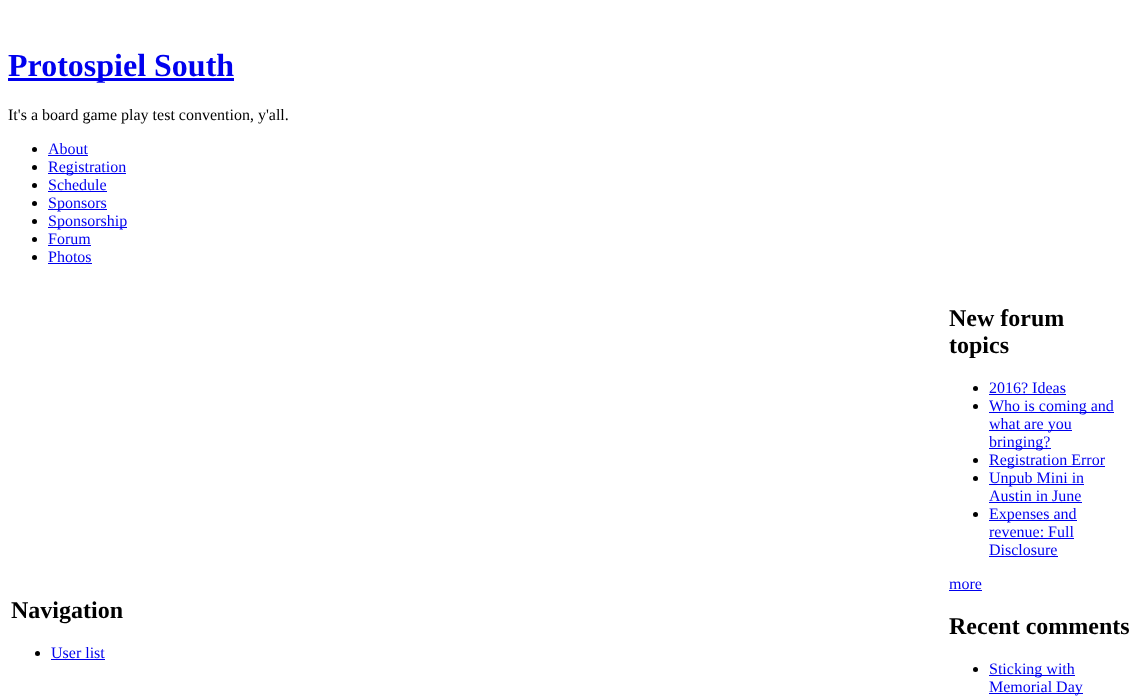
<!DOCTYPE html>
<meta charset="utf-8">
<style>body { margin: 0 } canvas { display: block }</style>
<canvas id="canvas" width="1141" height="696"></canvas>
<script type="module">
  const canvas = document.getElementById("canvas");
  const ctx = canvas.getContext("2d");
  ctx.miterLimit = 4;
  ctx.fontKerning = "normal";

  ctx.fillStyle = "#ffffff";
  ctx.fillRect(0, 0, 1141, 696);
  ctx.fillStyle = "#0000ee";
  ctx.fillRect(8, 78, 226, 3);
  ctx.font = "bold 32px Liberation Serif";
  ctx.fillText("Protospiel South", 8, 76);
  ctx.font = "16px Liberation Serif";
  ctx.fillStyle = "#000000";
  ctx.fillText("It's a board game play test convention, y'all.", 8, 120);
  ctx.beginPath();
  ctx.arc(34.5, 149.5, 2.5, 0, Math.PI * 2);
  ctx.fill();
  ctx.fillStyle = "#0000ee";
  ctx.fillText("About", 48, 154);
  ctx.fillRect(48, 155, 40, 1);
  ctx.fillStyle = "#000000";
  ctx.beginPath();
  ctx.arc(34.5, 167.5, 2.5, 0, Math.PI * 2);
  ctx.fill();
  ctx.fillStyle = "#0000ee";
  ctx.fillRect(48, 173, 78, 1);
  ctx.fillText("Registration", 48, 172);
  ctx.fillStyle = "#000000";
  ctx.beginPath();
  ctx.arc(34.5, 185.5, 2.5, 0, Math.PI * 2);
  ctx.fill();
  ctx.fillStyle = "#0000ee";
  ctx.fillText("Schedule", 48, 190);
  ctx.fillRect(48, 191, 59, 1);
  ctx.fillStyle = "#000000";
  ctx.beginPath();
  ctx.arc(34.5, 203.5, 2.5, 0, Math.PI * 2);
  ctx.fill();
  ctx.fillStyle = "#0000ee";
  ctx.fillRect(48, 209, 59, 1);
  ctx.fillText("Sponsors", 48, 208);
  ctx.fillStyle = "#000000";
  ctx.beginPath();
  ctx.arc(34.5, 221.5, 2.5, 0, Math.PI * 2);
  ctx.fill();
  ctx.fillStyle = "#0000ee";
  ctx.fillRect(48, 227, 79, 1);
  ctx.fillText("Sponsorship", 48, 226);
  ctx.fillStyle = "#000000";
  ctx.beginPath();
  ctx.arc(34.5, 239.5, 2.5, 0, Math.PI * 2);
  ctx.fill();
  ctx.fillStyle = "#0000ee";
  ctx.fillText("Forum", 48, 244);
  ctx.fillRect(48, 245, 43, 1);
  ctx.fillStyle = "#000000";
  ctx.beginPath();
  ctx.arc(34.5, 257.5, 2.5, 0, Math.PI * 2);
  ctx.fill();
  ctx.fillStyle = "#0000ee";
  ctx.fillText("Photos", 48, 262);
  ctx.fillRect(48, 263, 44, 1);
  ctx.font = "bold 24px Liberation Serif";
  ctx.fillStyle = "#000000";
  ctx.fillText("Navigation", 11, 618);
  ctx.beginPath();
  ctx.arc(37.5, 653.5, 2.5, 0, Math.PI * 2);
  ctx.fill();
  ctx.font = "16px Liberation Serif";
  ctx.fillStyle = "#0000ee";
  ctx.fillText("User list", 51, 658);
  ctx.fillRect(51, 659, 54, 1);
  ctx.font = "bold 24px Liberation Serif";
  ctx.fillStyle = "#000000";
  ctx.fillText("New forum", 949, 326);
  ctx.fillText("topics", 949, 353);
  ctx.beginPath();
  ctx.arc(975.5, 388.5, 2.5, 0, Math.PI * 2);
  ctx.fill();
  ctx.font = "16px Liberation Serif";
  ctx.fillStyle = "#0000ee";
  ctx.fillText("2016? Ideas", 989, 393);
  ctx.fillRect(989, 394, 77, 1);
  ctx.fillStyle = "#000000";
  ctx.beginPath();
  ctx.arc(975.5, 406.5, 2.5, 0, Math.PI * 2);
  ctx.fill();
  ctx.fillStyle = "#0000ee";
  ctx.fillRect(989, 412, 125, 1);
  ctx.fillText("Who is coming and", 989, 411);
  ctx.fillRect(989, 430, 83, 1);
  ctx.fillText("what are you", 989, 429);
  ctx.fillRect(989, 448, 62, 1);
  ctx.fillText("bringing?", 989, 447);
  ctx.fillStyle = "#000000";
  ctx.beginPath();
  ctx.arc(975.5, 460.5, 2.5, 0, Math.PI * 2);
  ctx.fill();
  ctx.fillStyle = "#0000ee";
  ctx.fillRect(989, 466, 116, 1);
  ctx.fillText("Registration Error", 989, 465);
  ctx.fillStyle = "#000000";
  ctx.beginPath();
  ctx.arc(975.5, 478.5, 2.5, 0, Math.PI * 2);
  ctx.fill();
  ctx.fillStyle = "#0000ee";
  ctx.fillRect(989, 484, 95, 1);
  ctx.fillText("Unpub Mini in", 989, 483);
  ctx.fillText("Austin in June", 989, 501);
  ctx.fillRect(989, 502, 93, 1);
  ctx.fillStyle = "#000000";
  ctx.beginPath();
  ctx.arc(975.5, 514.5, 2.5, 0, Math.PI * 2);
  ctx.fill();
  ctx.fillStyle = "#0000ee";
  ctx.fillRect(989, 520, 88, 1);
  ctx.fillText("Expenses and", 989, 519);
  ctx.fillText("revenue: Full", 989, 537);
  ctx.fillRect(989, 538, 85, 1);
  ctx.fillText("Disclosure", 989, 555);
  ctx.fillRect(989, 556, 69, 1);
  ctx.fillText("more", 949, 589);
  ctx.fillRect(949, 590, 33, 1);
  ctx.font = "bold 24px Liberation Serif";
  ctx.fillStyle = "#000000";
  ctx.fillText("Recent comments", 949, 634);
  ctx.beginPath();
  ctx.arc(975.5, 669.5, 2.5, 0, Math.PI * 2);
  ctx.fill();
  ctx.fillStyle = "#0000ee";
  ctx.fillRect(989, 675, 86, 1);
  ctx.font = "16px Liberation Serif";
  ctx.fillText("Sticking with", 989, 674);
  ctx.fillRect(989, 693, 94, 1);
  ctx.fillText("Memorial Day", 989, 692);
</script>
